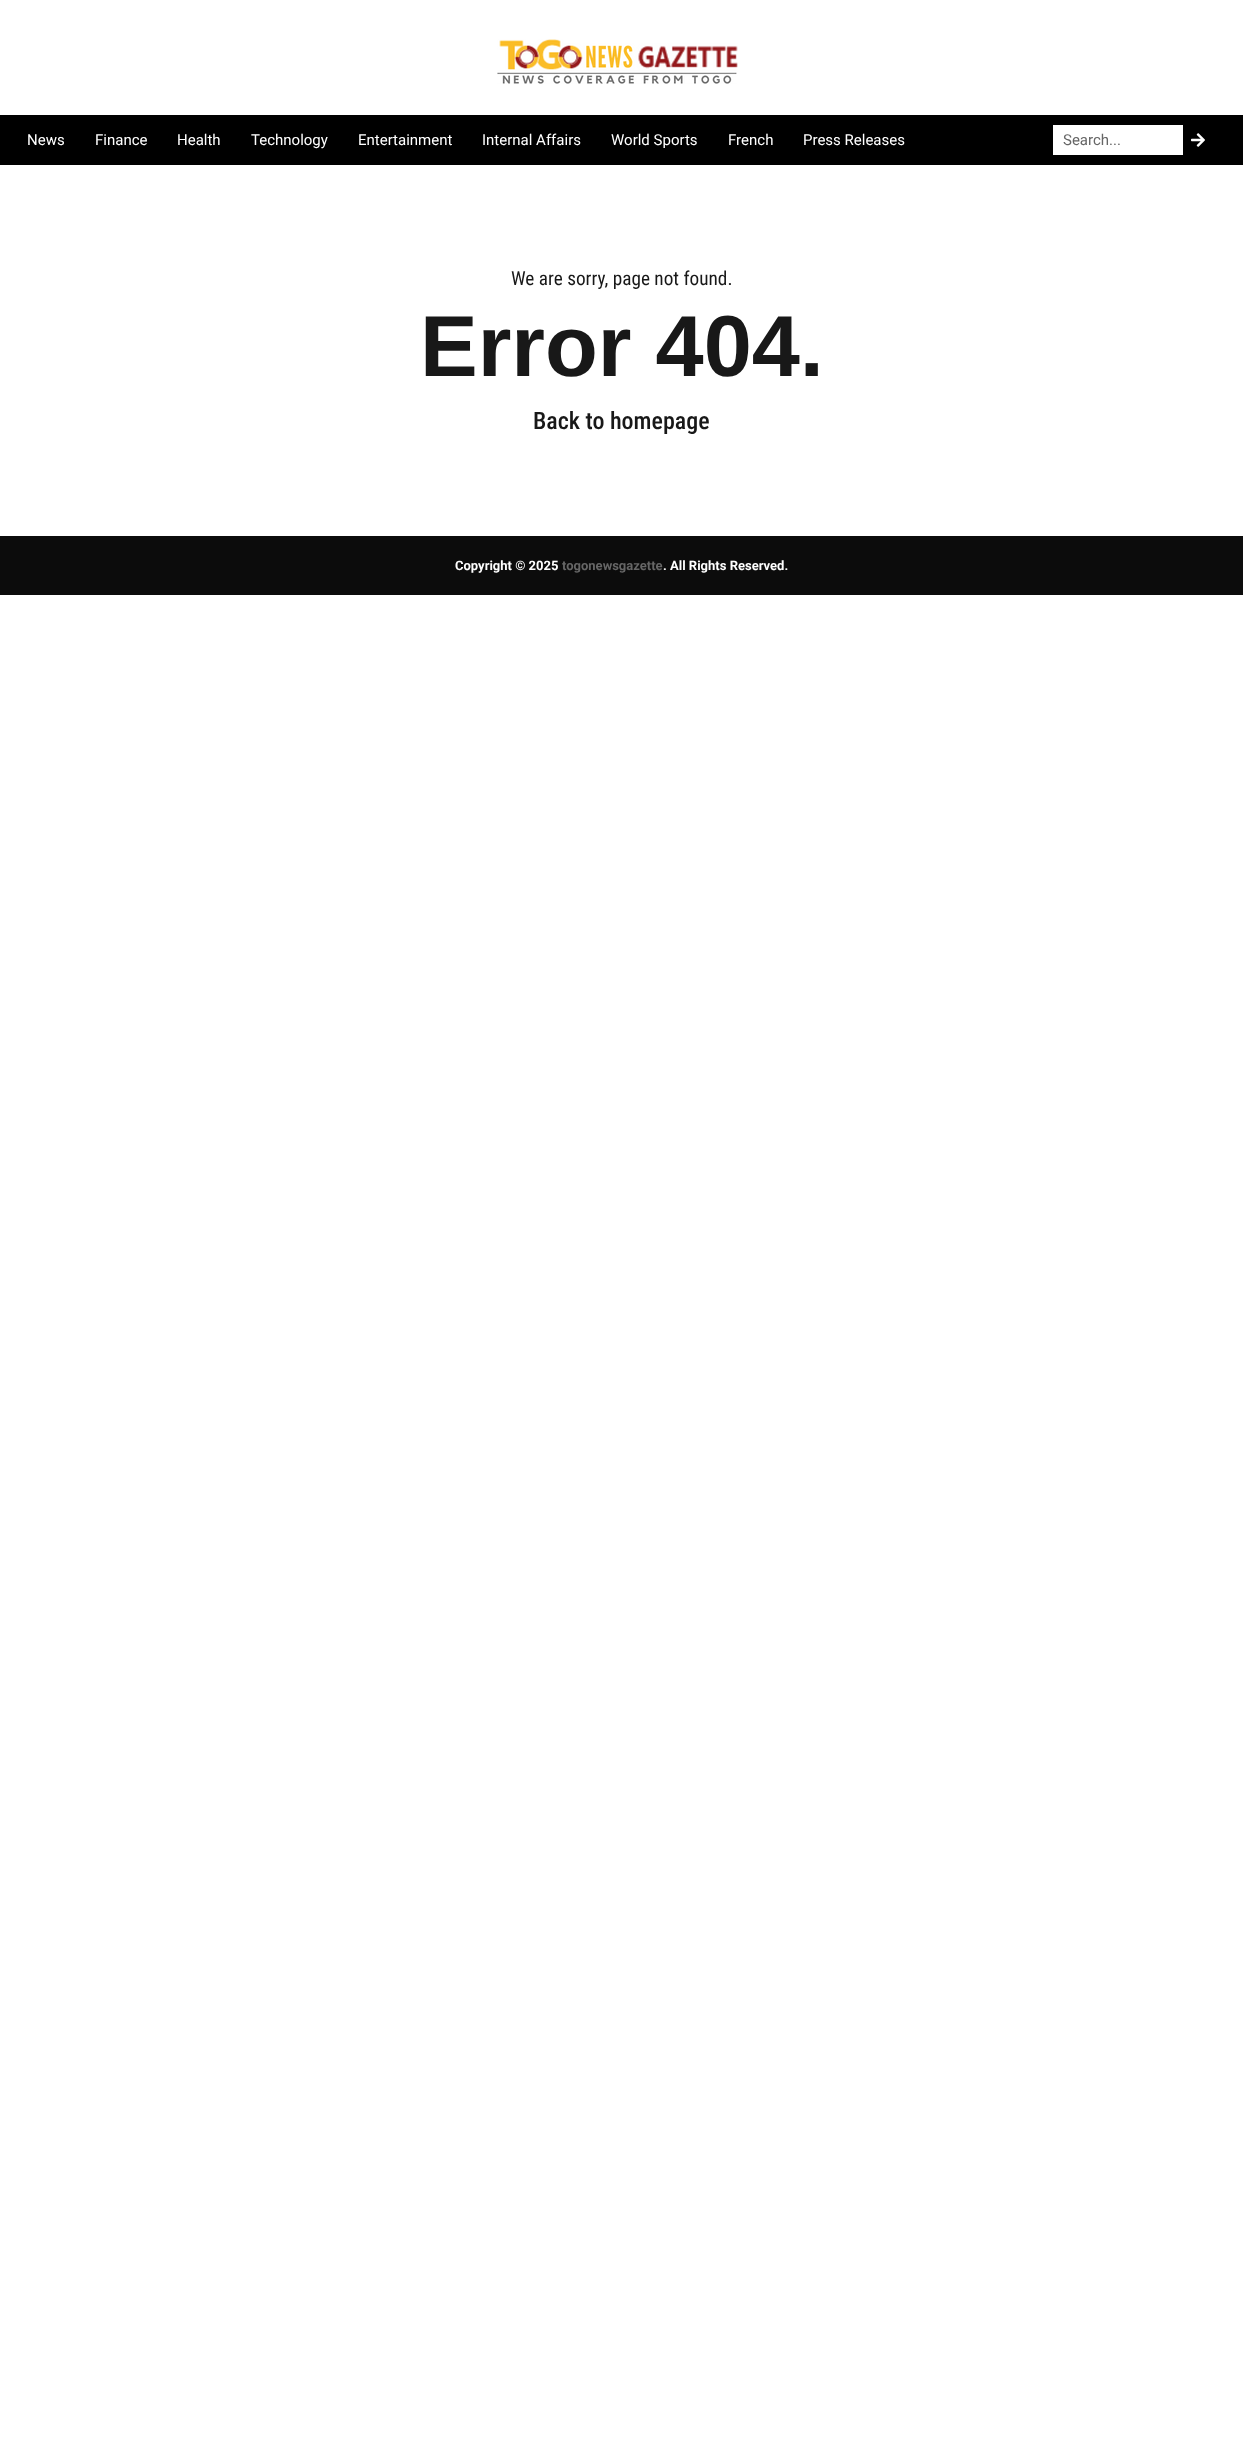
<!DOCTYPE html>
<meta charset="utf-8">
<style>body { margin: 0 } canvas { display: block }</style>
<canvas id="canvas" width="1243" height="2443"></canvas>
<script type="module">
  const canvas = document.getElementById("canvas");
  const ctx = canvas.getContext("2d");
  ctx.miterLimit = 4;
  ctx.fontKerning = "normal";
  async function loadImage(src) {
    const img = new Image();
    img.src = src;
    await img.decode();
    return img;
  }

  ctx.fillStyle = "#ffffff";
  ctx.fillRect(0, 0, 1243, 2443);
  ctx.drawImage(await loadImage("img1.png"), 497, 39, 241, 45);
  ctx.fillStyle = "#000000";
  ctx.fillRect(0, 115, 1243, 50);
  ctx.font = "15px Roboto";
  ctx.fillStyle = "#ffffff";
  ctx.fillText("News", 27, 145);
  ctx.fillText("Finance", 95, 145);
  ctx.fillText("Health", 177, 145);
  ctx.fillText("Technology", 251, 145);
  ctx.fillText("Entertainment", 358, 145);
  ctx.fillText("Internal Affairs", 482, 145);
  ctx.fillText("World Sports", 611, 145);
  ctx.fillText("French", 728, 145);
  ctx.fillText("Press Releases", 803, 145);
  ctx.fillRect(1053, 125, 130, 30);
  ctx.fillStyle = "#666666";
  ctx.fillText("Search...", 1063, 145);
  ctx.drawImage(await loadImage("img2.png"), 1191, 133, 14, 14);
  ctx.font = "19.25px Roboto Condensed";
  ctx.fillStyle = "#181818";
  ctx.fillText("We are sorry, page not found.", 511, 285);
  ctx.font = "bold 86.5px Liberation Sans";
  ctx.fillText("Error 404.", 420, 376);
  ctx.font = "500 24px Roboto Condensed";
  ctx.fillText("Back to homepage", 533, 429);
  ctx.fillStyle = "#0c0c0c";
  ctx.fillRect(0, 536, 1243, 59);
  ctx.font = "bold 13px Roboto";
  ctx.fillStyle = "#ffffff";
  ctx.fillText("Copyright © 2025", 455, 570);
  ctx.fillStyle = "#666666";
  ctx.fillText("togonewsgazette", 562, 570);
  ctx.fillStyle = "#ffffff";
  ctx.fillText(". All Rights Reserved.", 663, 570);
</script>
